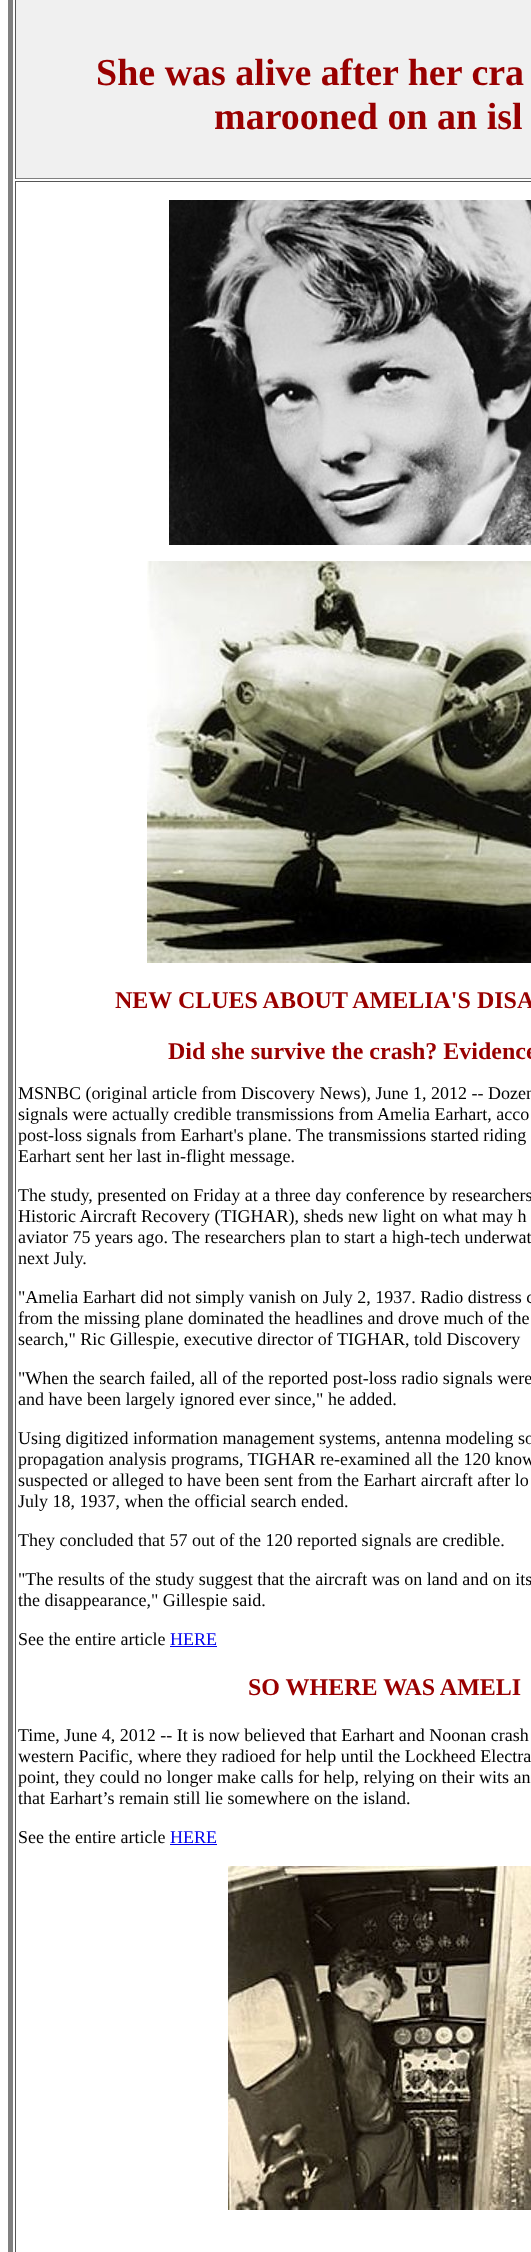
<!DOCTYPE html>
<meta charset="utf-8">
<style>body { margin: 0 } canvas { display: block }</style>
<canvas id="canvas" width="531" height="2252"></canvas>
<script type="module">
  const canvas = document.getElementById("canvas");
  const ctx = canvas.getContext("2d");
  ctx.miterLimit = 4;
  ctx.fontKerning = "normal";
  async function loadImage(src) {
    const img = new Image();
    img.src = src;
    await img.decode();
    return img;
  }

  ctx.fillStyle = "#ffffff";
  ctx.fillRect(0, 0, 531, 2252);
  ctx.fillStyle = "#808080";
  ctx.beginPath();
  ctx.moveTo(8, 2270);
  ctx.lineTo(8, -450);
  ctx.lineTo(13, -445);
  ctx.lineTo(13, 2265);
  ctx.closePath();
  ctx.fill();
  ctx.fillStyle = "#f0f0f0";
  ctx.fillRect(16, 0, 515, 178);
  ctx.fillStyle = "#808080";
  ctx.fillRect(15, 178, 516, 1);
  ctx.fillStyle = "#555555";
  ctx.fillRect(15, 0, 1, 179);
  ctx.font = "bold 38px Liberation Serif";
  ctx.fillStyle = "#990000";
  ctx.fillText("She was alive after her cra", 96, 85);
  ctx.fillText("marooned on an isl", 214, 129);
  ctx.fillStyle = "#555555";
  ctx.fillRect(15, 181, 516, 1);
  ctx.fillRect(15, 181, 1, 2071);
  ctx.drawImage(await loadImage("img1.png"), 169, 200, 362, 345);
  ctx.drawImage(await loadImage("img2.png"), 147, 561, 384, 402);
  ctx.font = "bold 24px Liberation Serif";
  ctx.fillStyle = "#990000";
  ctx.fillText("NEW CLUES ABOUT AMELIA'S DISA", 115, 1008);
  ctx.fillText("Did she survive the crash? Evidence", 168, 1059);
  ctx.font = "18px Liberation Serif";
  ctx.fillStyle = "#000000";
  ctx.fillText("MSNBC (original article from Discovery News), June 1, 2012 -- Dozen", 18, 1099);
  ctx.fillText("signals were actually credible transmissions from Amelia Earhart, acco", 18, 1120);
  ctx.fillText("post-loss signals from Earhart's plane. The transmissions started riding", 18, 1141);
  ctx.fillText("Earhart sent her last in-flight message.", 18, 1162);
  ctx.fillText("The study, presented on Friday at a three day conference by researchers", 18, 1201);
  ctx.fillText("Historic Aircraft Recovery (TIGHAR), sheds new light on what may h", 18, 1222);
  ctx.fillText("aviator 75 years ago. The researchers plan to start a high-tech underwat", 18, 1243);
  ctx.fillText("next July.", 18, 1264);
  ctx.fillText("\"Amelia Earhart did not simply vanish on July 2, 1937. Radio distress c", 18, 1303);
  ctx.fillText("from the missing plane dominated the headlines and drove much of the", 18, 1324);
  ctx.fillText("search,\" Ric Gillespie, executive director of TIGHAR, told Discovery", 18, 1345);
  ctx.fillText("\"When the search failed, all of the reported post-loss radio signals were", 18, 1384);
  ctx.fillText("and have been largely ignored ever since,\" he added.", 18, 1405);
  ctx.fillText("Using digitized information management systems, antenna modeling so", 18, 1444);
  ctx.fillText("propagation analysis programs, TIGHAR re-examined all the 120 know", 18, 1465);
  ctx.fillText("suspected or alleged to have been sent from the Earhart aircraft after lo", 18, 1486);
  ctx.fillText("July 18, 1937, when the official search ended.", 18, 1507);
  ctx.fillText("They concluded that 57 out of the 120 reported signals are credible.", 18, 1546);
  ctx.fillText("\"The results of the study suggest that the aircraft was on land and on its", 18, 1585);
  ctx.fillText("the disappearance,\" Gillespie said.", 18, 1606);
  ctx.fillText("See the entire article", 18, 1645);
  ctx.fillStyle = "#0000ee";
  ctx.fillText("HERE", 170, 1645);
  ctx.fillRect(170, 1646, 47, 1);
  ctx.font = "bold 24px Liberation Serif";
  ctx.fillStyle = "#990000";
  ctx.fillText("SO WHERE WAS AMELI", 248, 1695);
  ctx.font = "18px Liberation Serif";
  ctx.fillStyle = "#000000";
  ctx.fillText("Time, June 4, 2012 -- It is now believed that Earhart and Noonan crash", 18, 1741);
  ctx.fillText("western Pacific, where they radioed for help until the Lockheed Electra", 18, 1762);
  ctx.fillText("point, they could no longer make calls for help, relying on their wits an", 18, 1783);
  ctx.fillText("that Earhart’s remain still lie somewhere on the island.", 18, 1804);
  ctx.fillText("See the entire article", 18, 1843);
  ctx.fillStyle = "#0000ee";
  ctx.fillText("HERE", 170, 1843);
  ctx.fillRect(170, 1844, 47, 1);
  ctx.drawImage(await loadImage("img3.png"), 228, 1866, 303, 344);
</script>
